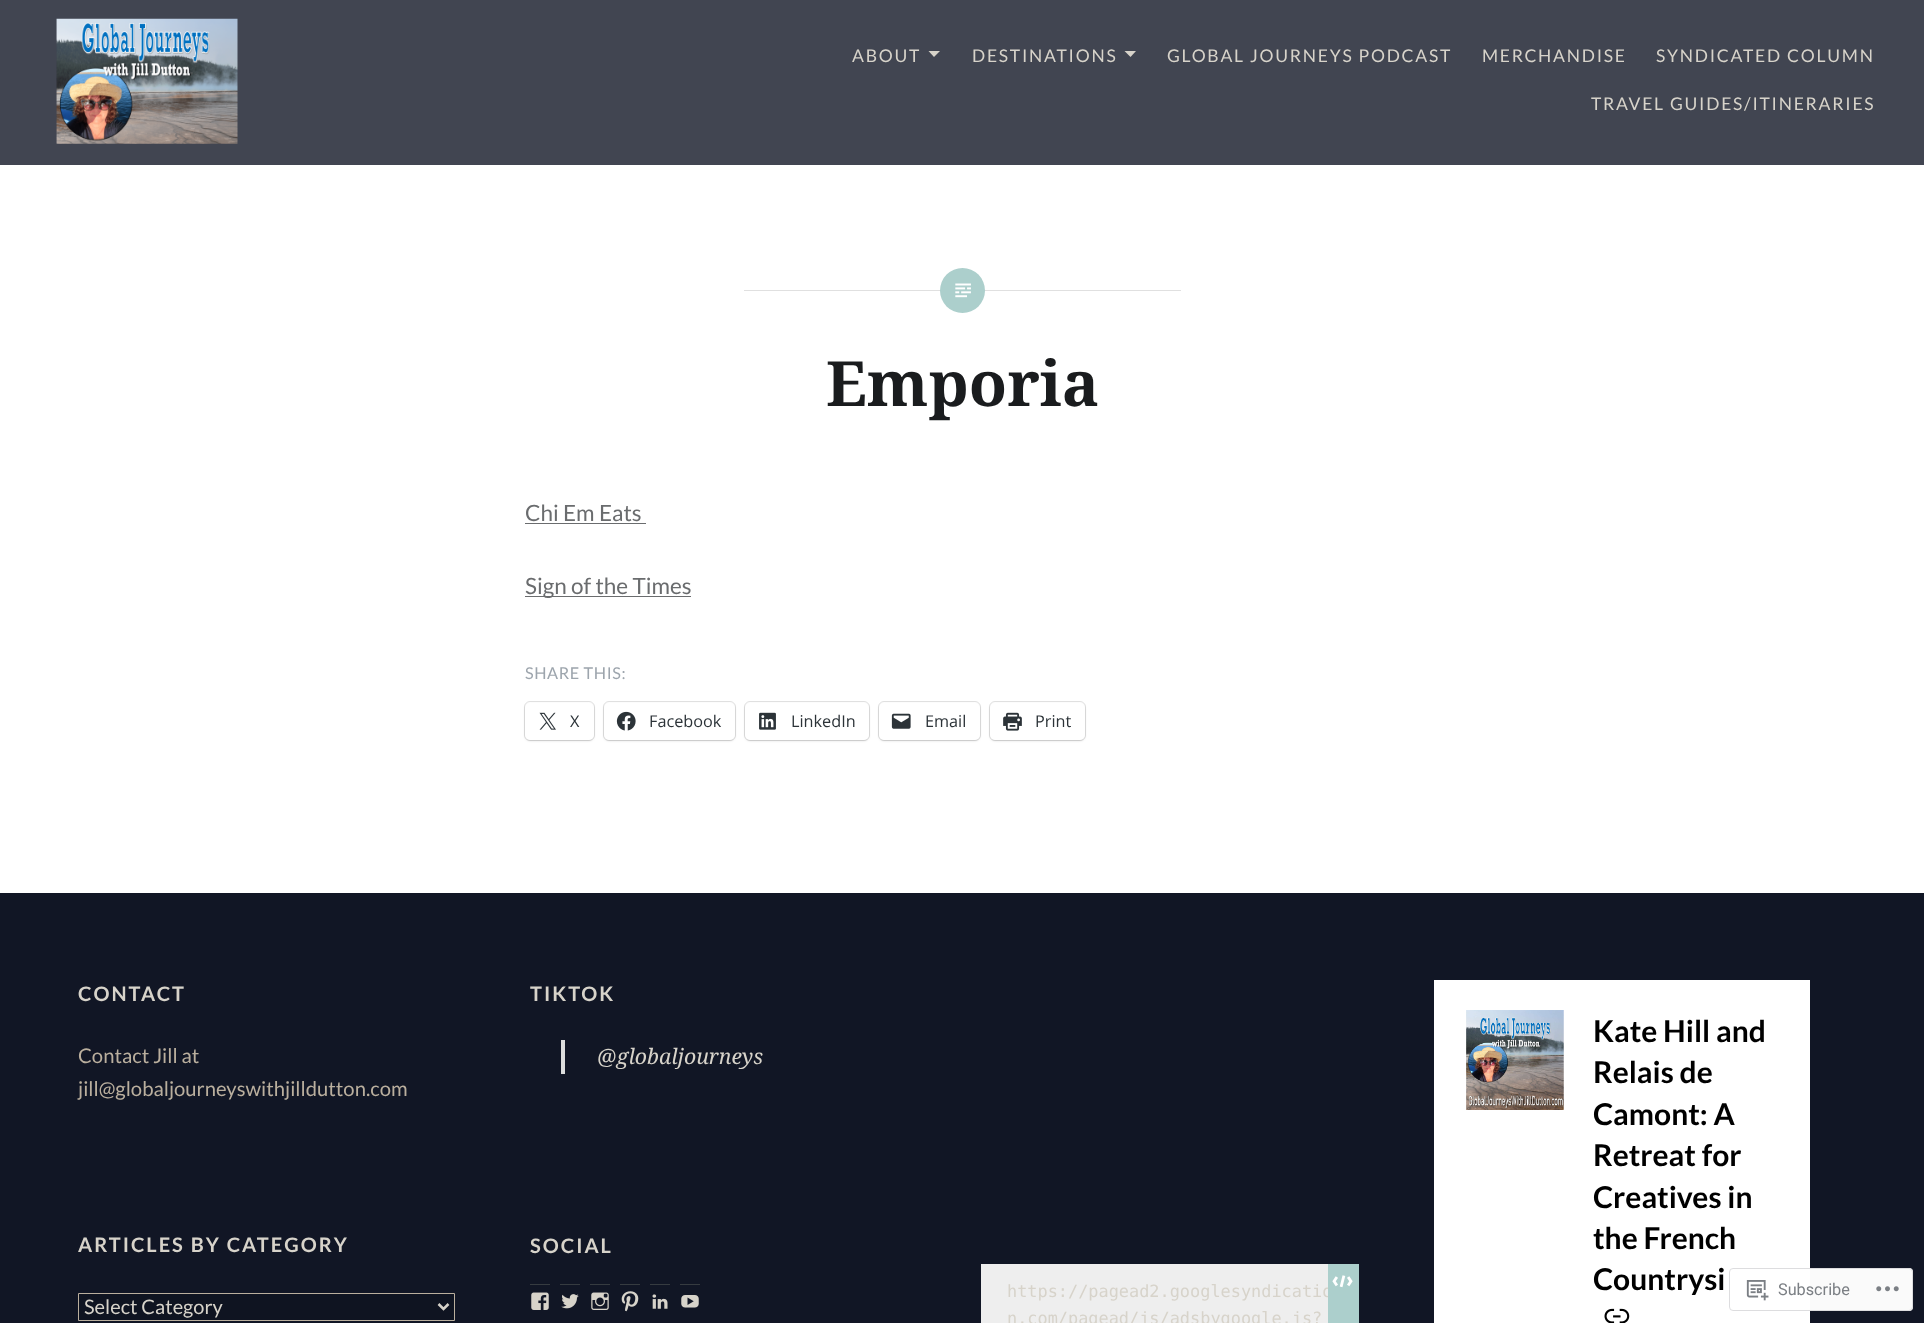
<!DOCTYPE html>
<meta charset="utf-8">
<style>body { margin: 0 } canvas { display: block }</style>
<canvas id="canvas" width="1924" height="1323"></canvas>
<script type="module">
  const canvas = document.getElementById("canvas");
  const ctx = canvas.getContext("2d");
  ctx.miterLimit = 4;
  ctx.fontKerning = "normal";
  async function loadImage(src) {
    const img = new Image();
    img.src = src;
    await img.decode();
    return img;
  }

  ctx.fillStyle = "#ffffff";
  ctx.fillRect(0, 0, 1924, 1323);
  ctx.fillStyle = "#414551";
  ctx.fillRect(0, 0, 1924, 165);
  ctx.drawImage(await loadImage("img1.png"), 56, 18, 182, 126);
  ctx.letterSpacing = "1.75px";
  ctx.font = "17.5px Lato";
  ctx.fillStyle = "#d7d3ca";
  ctx.fillText("ABOUT", 852, 62);
  ctx.beginPath();
  ctx.moveTo(928.5, 51);
  ctx.lineTo(940, 51);
  ctx.lineTo(934, 57);
  ctx.closePath();
  ctx.fill();
  ctx.fillText("DESTINATIONS", 972, 62);
  ctx.beginPath();
  ctx.moveTo(1124.5, 51);
  ctx.lineTo(1136, 51);
  ctx.lineTo(1130.5, 57);
  ctx.closePath();
  ctx.fill();
  ctx.fillText("GLOBAL JOURNEYS PODCAST", 1167, 62);
  ctx.fillText("MERCHANDISE", 1482, 62);
  ctx.fillText("SYNDICATED COLUMN", 1656, 62);
  ctx.fillText("TRAVEL GUIDES/ITINERARIES", 1591, 110);
  ctx.fillStyle = "#e0e0e0";
  ctx.fillRect(744, 290, 437, 1);
  ctx.fillStyle = "#accfcc";
  ctx.beginPath();
  ctx.arc(962.5, 290.5, 22.5, 0, Math.PI * 2);
  ctx.fill();
  ctx.drawImage(await loadImage("img2.png"), 955, 283, 16, 15);
  ctx.letterSpacing = "0px";
  ctx.font = "bold 62.5px Noto Serif";
  ctx.fillStyle = "#1a1c1e";
  ctx.fillText("Emporia", 826, 406);
  ctx.font = "22.5px Lato";
  ctx.fillStyle = "#6a6c6e";
  ctx.fillText("Chi Em Eats", 525, 521);
  ctx.fillRect(525, 523, 121, 1);
  ctx.fillRect(525, 596, 166, 1);
  ctx.fillText("Sign of the Times", 525, 594);
  ctx.letterSpacing = "0.6px";
  ctx.font = "16.25px Lato";
  ctx.fillStyle = "#9da5ad";
  ctx.fillText("SHARE THIS:", 525, 679);
  ctx.beginPath();
  ctx.roundRect(524.5, 701.5, 70, 39, 5.5);
  ctx.strokeStyle = "#e0e0e0";
  ctx.stroke();
  ctx.fillStyle = "rgba(0, 0, 0, 0.12)";
  ctx.filter = "blur(1px)";
  ctx.beginPath();
  ctx.roundRect(525, 704, 69, 37, 5);
  ctx.fill();
  ctx.filter = "none";
  ctx.fillStyle = "#ffffff";
  ctx.beginPath();
  ctx.roundRect(525, 703, 69, 37, 5);
  ctx.fill();
  ctx.drawImage(await loadImage("img3.png"), 539, 712, 17, 18);
  ctx.letterSpacing = "0px";
  ctx.font = "16.25px Open Sans";
  ctx.fillStyle = "#2c3338";
  ctx.fillText("X", 570, 727);
  ctx.beginPath();
  ctx.roundRect(603.5, 701.5, 132, 39, 5.5);
  ctx.stroke();
  ctx.fillStyle = "rgba(0, 0, 0, 0.12)";
  ctx.filter = "blur(1px)";
  ctx.beginPath();
  ctx.roundRect(604, 704, 131, 37, 5);
  ctx.fill();
  ctx.filter = "none";
  ctx.fillStyle = "#ffffff";
  ctx.beginPath();
  ctx.roundRect(604, 703, 131, 37, 5);
  ctx.fill();
  ctx.drawImage(await loadImage("img4.png"), 616, 711, 20, 20);
  ctx.fillStyle = "#2c3338";
  ctx.fillText("Facebook", 649, 727);
  ctx.beginPath();
  ctx.roundRect(744.5, 701.5, 125, 39, 5.5);
  ctx.stroke();
  ctx.fillStyle = "rgba(0, 0, 0, 0.12)";
  ctx.filter = "blur(1px)";
  ctx.beginPath();
  ctx.roundRect(745, 704, 124, 37, 5);
  ctx.fill();
  ctx.filter = "none";
  ctx.fillStyle = "#ffffff";
  ctx.beginPath();
  ctx.roundRect(745, 703, 124, 37, 5);
  ctx.fill();
  ctx.drawImage(await loadImage("img5.png"), 759, 712, 17, 18);
  ctx.fillStyle = "#2c3338";
  ctx.fillText("LinkedIn", 791, 727);
  ctx.beginPath();
  ctx.roundRect(878.5, 701.5, 102, 39, 5.5);
  ctx.stroke();
  ctx.fillStyle = "rgba(0, 0, 0, 0.12)";
  ctx.filter = "blur(1px)";
  ctx.beginPath();
  ctx.roundRect(879, 704, 101, 37, 5);
  ctx.fill();
  ctx.filter = "none";
  ctx.fillStyle = "#ffffff";
  ctx.beginPath();
  ctx.roundRect(879, 703, 101, 37, 5);
  ctx.fill();
  ctx.drawImage(await loadImage("img6.png"), 891, 713, 20, 16);
  ctx.fillStyle = "#2c3338";
  ctx.fillText("Email", 925, 727);
  ctx.beginPath();
  ctx.roundRect(989.5, 701.5, 96, 39, 5.5);
  ctx.stroke();
  ctx.fillStyle = "rgba(0, 0, 0, 0.12)";
  ctx.filter = "blur(1px)";
  ctx.beginPath();
  ctx.roundRect(990, 704, 95, 37, 5);
  ctx.fill();
  ctx.filter = "none";
  ctx.fillStyle = "#ffffff";
  ctx.beginPath();
  ctx.roundRect(990, 703, 95, 37, 5);
  ctx.fill();
  ctx.drawImage(await loadImage("img7.png"), 1003, 712, 19, 19);
  ctx.fillStyle = "#2c3338";
  ctx.fillText("Print", 1035, 727);
  ctx.fillStyle = "#111625";
  ctx.fillRect(0, 893, 1924, 430);
  ctx.letterSpacing = "2px";
  ctx.font = "bold 20px Lato";
  ctx.fillStyle = "#d7d3ca";
  ctx.fillText("CONTACT", 78, 1001);
  ctx.letterSpacing = "0px";
  ctx.font = "20.25px Lato";
  ctx.fillStyle = "#baaf9e";
  ctx.fillText("Contact Jill at", 78, 1063);
  ctx.fillText("jill@globaljourneyswithjilldutton.com", 78, 1096);
  ctx.letterSpacing = "2px";
  ctx.font = "bold 20px Lato";
  ctx.fillStyle = "#d7d3ca";
  ctx.fillText("TIKTOK", 530, 1001);
  ctx.fillStyle = "#dddddd";
  ctx.fillRect(561, 1040, 4, 34);
  ctx.letterSpacing = "0px";
  ctx.font = "italic 21.25px Noto Serif";
  ctx.fillStyle = "#d7d3ca";
  ctx.fillText("@globaljourneys", 597, 1064);
  ctx.fillStyle = "#ffffff";
  ctx.fillRect(1434, 980, 376, 343);
  ctx.drawImage(await loadImage("img8.png"), 1466, 1010, 98, 100);
  ctx.font = "bold 30px Lato";
  ctx.fillStyle = "#000000";
  ctx.fillText("Kate Hill and", 1593, 1042);
  ctx.fillText("Relais de", 1593, 1083);
  ctx.fillText("Camont: A", 1593, 1125);
  ctx.fillText("Retreat for", 1593, 1166);
  ctx.fillText("Creatives in", 1593, 1208);
  ctx.fillText("the French", 1593, 1249);
  ctx.fillText("Countrysi", 1593, 1290);
  ctx.drawImage(await loadImage("img9.png"), 1604, 1308, 26, 15);
  ctx.letterSpacing = "2px";
  ctx.font = "bold 20px Lato";
  ctx.fillStyle = "#d7d3ca";
  ctx.fillText("ARTICLES BY CATEGORY", 78, 1252);
  ctx.fillStyle = "#0f1421";
  ctx.beginPath();
  ctx.rect(78.5, 1293.5, 376, 27);
  ctx.fill();
  ctx.strokeStyle = "#baaf9e";
  ctx.stroke();
  ctx.beginPath();
  ctx.moveTo(438.5, 1304);
  ctx.lineTo(443.5, 1309);
  ctx.lineTo(448.5, 1304);
  ctx.strokeStyle = "#d7d3ca";
  ctx.lineWidth = 2.5;
  ctx.stroke();
  ctx.letterSpacing = "0px";
  ctx.font = "20px Lato";
  ctx.fillStyle = "#d7d3ca";
  ctx.fillText("Select Category", 84, 1314);
  ctx.letterSpacing = "2px";
  ctx.font = "bold 20px Lato";
  ctx.fillText("SOCIAL", 530, 1253);
  ctx.fillStyle = "#363b40";
  ctx.fillRect(530, 1284, 20, 1);
  ctx.drawImage(await loadImage("img10.png"), 531, 1292, 18, 18);
  ctx.fillRect(560, 1284, 20, 1);
  ctx.drawImage(await loadImage("img11.png"), 561, 1294, 18, 15);
  ctx.fillRect(590, 1284, 20, 1);
  ctx.drawImage(await loadImage("img12.png"), 591, 1292, 18, 18);
  ctx.fillRect(620, 1284, 20, 1);
  ctx.drawImage(await loadImage("img13.png"), 621, 1291, 18, 21);
  ctx.fillRect(650, 1284, 20, 1);
  ctx.drawImage(await loadImage("img14.png"), 652, 1294, 16, 15);
  ctx.fillRect(680, 1284, 20, 1);
  ctx.drawImage(await loadImage("img15.png"), 681, 1295, 18, 13);
  ctx.fillStyle = "#eeeeee";
  ctx.fillRect(981, 1264, 347, 59);
  ctx.letterSpacing = "0px";
  ctx.font = "16.9px DejaVu Sans Mono";
  ctx.fillStyle = "#d7d3ca";
  ctx.fillText("https://pagead2.googlesyndicatio", 1007, 1297);
  ctx.fillText("n.com/pagead/js/adsbygoogle.js?", 1007, 1324);
  ctx.fillStyle = "#accfcc";
  ctx.fillRect(1328, 1264, 31, 59);
  ctx.drawImage(await loadImage("img16.png"), 1332, 1275, 21, 13);
  ctx.fillStyle = "rgba(255, 255, 255, 0.98)";
  ctx.beginPath();
  ctx.roundRect(1729, 1268, 184, 43, 4);
  ctx.fill();
  ctx.beginPath();
  ctx.roundRect(1729.5, 1268.5, 183, 42, 3.5);
  ctx.strokeStyle = "rgba(220, 220, 222, 0.98)";
  ctx.lineWidth = 1;
  ctx.stroke();
  ctx.drawImage(await loadImage("img17.png"), 1746, 1280, 23, 21);
  ctx.font = "16.25px Roboto";
  ctx.fillStyle = "#7b7f84";
  ctx.fillText("Subscribe", 1778, 1295);
  ctx.drawImage(await loadImage("img18.png"), 1876, 1286, 23, 6);
</script>
